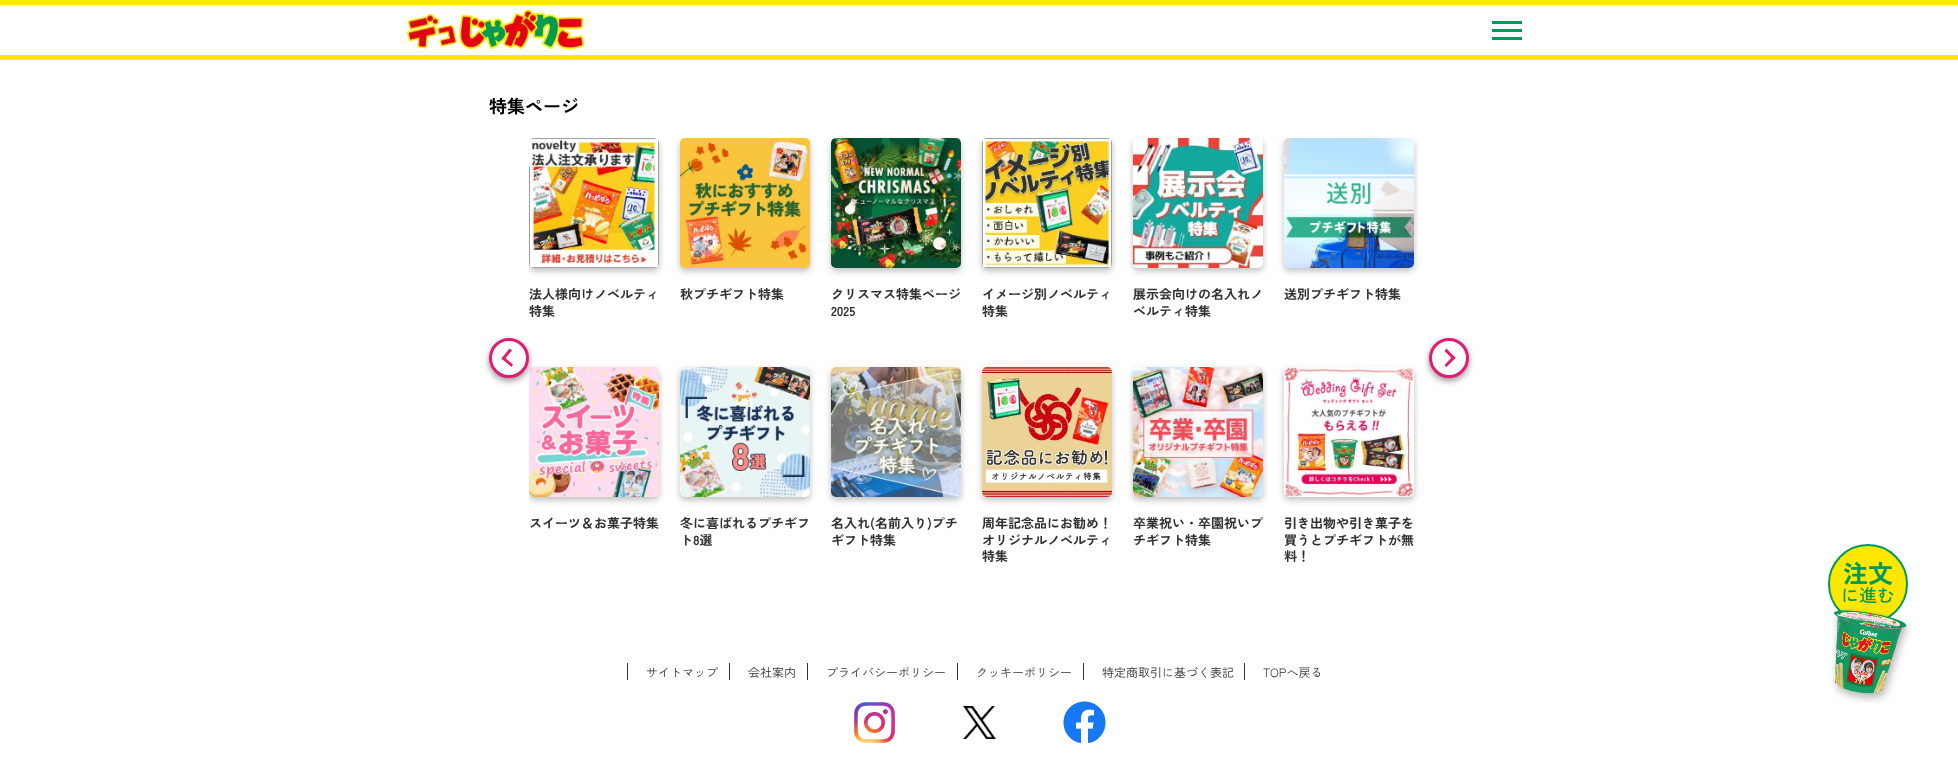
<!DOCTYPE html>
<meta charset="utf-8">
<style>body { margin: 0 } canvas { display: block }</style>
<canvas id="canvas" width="1958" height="769"></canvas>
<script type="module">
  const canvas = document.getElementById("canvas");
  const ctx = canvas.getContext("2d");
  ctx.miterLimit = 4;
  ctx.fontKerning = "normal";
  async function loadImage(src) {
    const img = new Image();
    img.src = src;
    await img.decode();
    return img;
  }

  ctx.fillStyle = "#ffffff";
  ctx.fillRect(0, 0, 1958, 769);
  ctx.fillStyle = "#ffe700";
  ctx.fillRect(0, 0, 1958, 5);
  ctx.drawImage(await loadImage("img1.png"), 406, 9, 179, 41);
  ctx.fillStyle = "#009a5a";
  ctx.fillRect(1492, 21, 30, 3);
  ctx.fillRect(1492, 29, 30, 3);
  ctx.fillRect(1492, 37, 30, 3);
  ctx.fillStyle = "#ffe700";
  ctx.fillRect(0, 55, 1958, 5);
  ctx.font = "bold 18px Zen Kaku Gothic New";
  ctx.fillStyle = "#020202";
  ctx.fillText("特集ページ", 489, 113);
  ctx.save();
  ctx.beginPath();
  ctx.rect(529, 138, 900, 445);
  ctx.clip();
  ctx.fillStyle = "#bfbfbf";
  ctx.filter = "blur(3px)";
  ctx.beginPath();
  ctx.roundRect(529, 141, 130, 130, 5);
  ctx.fill();
  ctx.filter = "none";
  ctx.restore();
  ctx.drawImage(await loadImage("img2.png"), 529, 138, 130, 130);
  ctx.font = "bold 13px Zen Kaku Gothic New";
  ctx.fillStyle = "#313131";
  ctx.fillText("法人様向けノベルティ", 529, 299);
  ctx.fillText("特集", 529, 316);
  ctx.save();
  ctx.beginPath();
  ctx.rect(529, 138, 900, 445);
  ctx.clip();
  ctx.fillStyle = "#bfbfbf";
  ctx.filter = "blur(3px)";
  ctx.beginPath();
  ctx.roundRect(680, 141, 130, 130, 5);
  ctx.fill();
  ctx.filter = "none";
  ctx.restore();
  ctx.drawImage(await loadImage("img3.png"), 680, 138, 130, 130);
  ctx.fillText("秋プチギフト特集", 680, 299);
  ctx.save();
  ctx.beginPath();
  ctx.rect(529, 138, 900, 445);
  ctx.clip();
  ctx.fillStyle = "#bfbfbf";
  ctx.filter = "blur(3px)";
  ctx.beginPath();
  ctx.roundRect(831, 141, 130, 130, 5);
  ctx.fill();
  ctx.filter = "none";
  ctx.restore();
  ctx.drawImage(await loadImage("img4.png"), 831, 138, 130, 130);
  ctx.fillText("クリスマス特集ページ", 831, 299);
  ctx.fillText("2025", 831, 316);
  ctx.save();
  ctx.beginPath();
  ctx.rect(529, 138, 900, 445);
  ctx.clip();
  ctx.fillStyle = "#bfbfbf";
  ctx.filter = "blur(3px)";
  ctx.beginPath();
  ctx.roundRect(982, 141, 130, 130, 5);
  ctx.fill();
  ctx.filter = "none";
  ctx.restore();
  ctx.drawImage(await loadImage("img5.png"), 982, 138, 130, 130);
  ctx.fillText("イメージ別ノベルティ", 982, 299);
  ctx.fillText("特集", 982, 316);
  ctx.save();
  ctx.beginPath();
  ctx.rect(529, 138, 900, 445);
  ctx.clip();
  ctx.fillStyle = "#bfbfbf";
  ctx.filter = "blur(3px)";
  ctx.beginPath();
  ctx.roundRect(1133, 141, 130, 130, 5);
  ctx.fill();
  ctx.filter = "none";
  ctx.restore();
  ctx.drawImage(await loadImage("img6.png"), 1133, 138, 130, 130);
  ctx.fillText("展示会向けの名入れノ", 1133, 299);
  ctx.fillText("ベルティ特集", 1133, 316);
  ctx.save();
  ctx.beginPath();
  ctx.rect(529, 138, 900, 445);
  ctx.clip();
  ctx.fillStyle = "#bfbfbf";
  ctx.filter = "blur(3px)";
  ctx.beginPath();
  ctx.roundRect(1284, 141, 130, 130, 5);
  ctx.fill();
  ctx.filter = "none";
  ctx.restore();
  ctx.drawImage(await loadImage("img7.png"), 1284, 138, 130, 130);
  ctx.fillText("送別プチギフト特集", 1284, 299);
  ctx.save();
  ctx.beginPath();
  ctx.rect(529, 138, 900, 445);
  ctx.clip();
  ctx.fillStyle = "#bfbfbf";
  ctx.filter = "blur(3px)";
  ctx.beginPath();
  ctx.roundRect(529, 370, 130, 130, 5);
  ctx.fill();
  ctx.filter = "none";
  ctx.restore();
  ctx.drawImage(await loadImage("img8.png"), 529, 367, 130, 130);
  ctx.fillText("スイーツ＆お菓子特集", 529, 528);
  ctx.fillStyle = "#bfbfbf";
  ctx.filter = "blur(3px)";
  ctx.beginPath();
  ctx.roundRect(680, 370, 130, 130, 5);
  ctx.fill();
  ctx.filter = "none";
  ctx.drawImage(await loadImage("img9.png"), 680, 367, 130, 130);
  ctx.fillStyle = "#313131";
  ctx.fillText("冬に喜ばれるプチギフ", 680, 528);
  ctx.fillText("ト8選", 680, 545);
  ctx.fillStyle = "#bfbfbf";
  ctx.filter = "blur(3px)";
  ctx.beginPath();
  ctx.roundRect(831, 370, 130, 130, 5);
  ctx.fill();
  ctx.filter = "none";
  ctx.drawImage(await loadImage("img10.png"), 831, 367, 130, 130);
  ctx.fillStyle = "#313131";
  ctx.fillText("名入れ(名前入り)プチ", 831, 528);
  ctx.fillText("ギフト特集", 831, 545);
  ctx.fillStyle = "#bfbfbf";
  ctx.filter = "blur(3px)";
  ctx.beginPath();
  ctx.roundRect(982, 370, 130, 130, 5);
  ctx.fill();
  ctx.filter = "none";
  ctx.drawImage(await loadImage("img11.png"), 982, 367, 130, 130);
  ctx.fillStyle = "#313131";
  ctx.fillText("周年記念品にお勧め！", 982, 528);
  ctx.fillText("オリジナルノベルティ", 982, 545);
  ctx.fillText("特集", 982, 561);
  ctx.fillStyle = "#bfbfbf";
  ctx.filter = "blur(3px)";
  ctx.beginPath();
  ctx.roundRect(1133, 370, 130, 130, 5);
  ctx.fill();
  ctx.filter = "none";
  ctx.drawImage(await loadImage("img12.png"), 1133, 367, 130, 130);
  ctx.fillStyle = "#313131";
  ctx.fillText("卒業祝い・卒園祝いプ", 1133, 528);
  ctx.fillText("チギフト特集", 1133, 545);
  ctx.fillStyle = "#bfbfbf";
  ctx.filter = "blur(3px)";
  ctx.beginPath();
  ctx.roundRect(1284, 370, 130, 130, 5);
  ctx.fill();
  ctx.filter = "none";
  ctx.drawImage(await loadImage("img13.png"), 1284, 367, 130, 130);
  ctx.fillStyle = "#313131";
  ctx.fillText("引き出物や引き菓子を", 1284, 528);
  ctx.fillText("買うとプチギフトが無", 1284, 545);
  ctx.fillText("料！", 1284, 561);
  ctx.fillStyle = "rgba(0, 0, 0, 0.4)";
  ctx.filter = "blur(3px)";
  ctx.beginPath();
  ctx.roundRect(489, 341, 40, 40, 20);
  ctx.fill();
  ctx.filter = "none";
  ctx.fillStyle = "#ffffff";
  ctx.beginPath();
  ctx.arc(509, 358, 18.5, 0, Math.PI * 2);
  ctx.fill();
  ctx.strokeStyle = "#e31b72";
  ctx.lineWidth = 3;
  ctx.stroke();
  ctx.fillStyle = "#e31b72";
  ctx.beginPath();
  ctx.moveTo(511.5, 367);
  ctx.lineTo(501.5, 358.5);
  ctx.lineTo(503.5, 356.5);
  ctx.lineTo(513, 364.5);
  ctx.closePath();
  ctx.fill();
  ctx.beginPath();
  ctx.moveTo(503.5, 360.5);
  ctx.lineTo(501.5, 358.5);
  ctx.lineTo(509.5, 348.5);
  ctx.lineTo(512, 350.5);
  ctx.closePath();
  ctx.fill();
  ctx.fillStyle = "rgba(0, 0, 0, 0.4)";
  ctx.filter = "blur(3px)";
  ctx.beginPath();
  ctx.roundRect(1429, 341, 40, 40, 20);
  ctx.fill();
  ctx.filter = "none";
  ctx.fillStyle = "#ffffff";
  ctx.beginPath();
  ctx.arc(1449, 358, 18.5, 0, Math.PI * 2);
  ctx.fill();
  ctx.stroke();
  ctx.fillStyle = "#e31b72";
  ctx.beginPath();
  ctx.moveTo(1446.5, 348.5);
  ctx.lineTo(1455.5, 358);
  ctx.lineTo(1453.5, 360);
  ctx.lineTo(1444.5, 351);
  ctx.closePath();
  ctx.fill();
  ctx.beginPath();
  ctx.moveTo(1453.5, 355.5);
  ctx.lineTo(1455.5, 358);
  ctx.lineTo(1446.5, 367);
  ctx.lineTo(1444.5, 365);
  ctx.closePath();
  ctx.fill();
  ctx.fillStyle = "#ffe700";
  ctx.beginPath();
  ctx.arc(1868, 584, 39, 0, Math.PI * 2);
  ctx.fill();
  ctx.strokeStyle = "#009a5a";
  ctx.lineWidth = 2;
  ctx.stroke();
  ctx.font = "bold 25px Zen Kaku Gothic New";
  ctx.fillStyle = "#009a5a";
  ctx.fillText("注文", 1843, 583);
  ctx.font = "500 18px Zen Kaku Gothic New";
  ctx.fillText("に進む", 1841, 602);
  ctx.drawImage(await loadImage("img14.png"), 1831, 608, 81, 95);
  ctx.fillStyle = "#313131";
  ctx.fillRect(627, 663, 1, 17);
  ctx.font = "12px Zen Kaku Gothic New";
  ctx.fillText("サイトマップ", 646, 677);
  ctx.fillRect(729, 663, 1, 17);
  ctx.fillText("会社案内", 748, 677);
  ctx.fillRect(807, 663, 1, 17);
  ctx.fillText("プライバシーポリシー", 826, 677);
  ctx.fillRect(957, 663, 1, 17);
  ctx.fillText("クッキーポリシー", 976, 677);
  ctx.fillRect(1083, 663, 1, 17);
  ctx.fillText("特定商取引に基づく表記", 1102, 677);
  ctx.fillRect(1244, 663, 1, 17);
  ctx.fillText("TOPへ戻る", 1263, 677);
  ctx.drawImage(await loadImage("img15.png"), 854, 702, 42, 41);
  ctx.drawImage(await loadImage("img16.png"), 963, 706, 33, 33);
  ctx.drawImage(await loadImage("img17.png"), 1063, 701, 43, 43);
</script>
